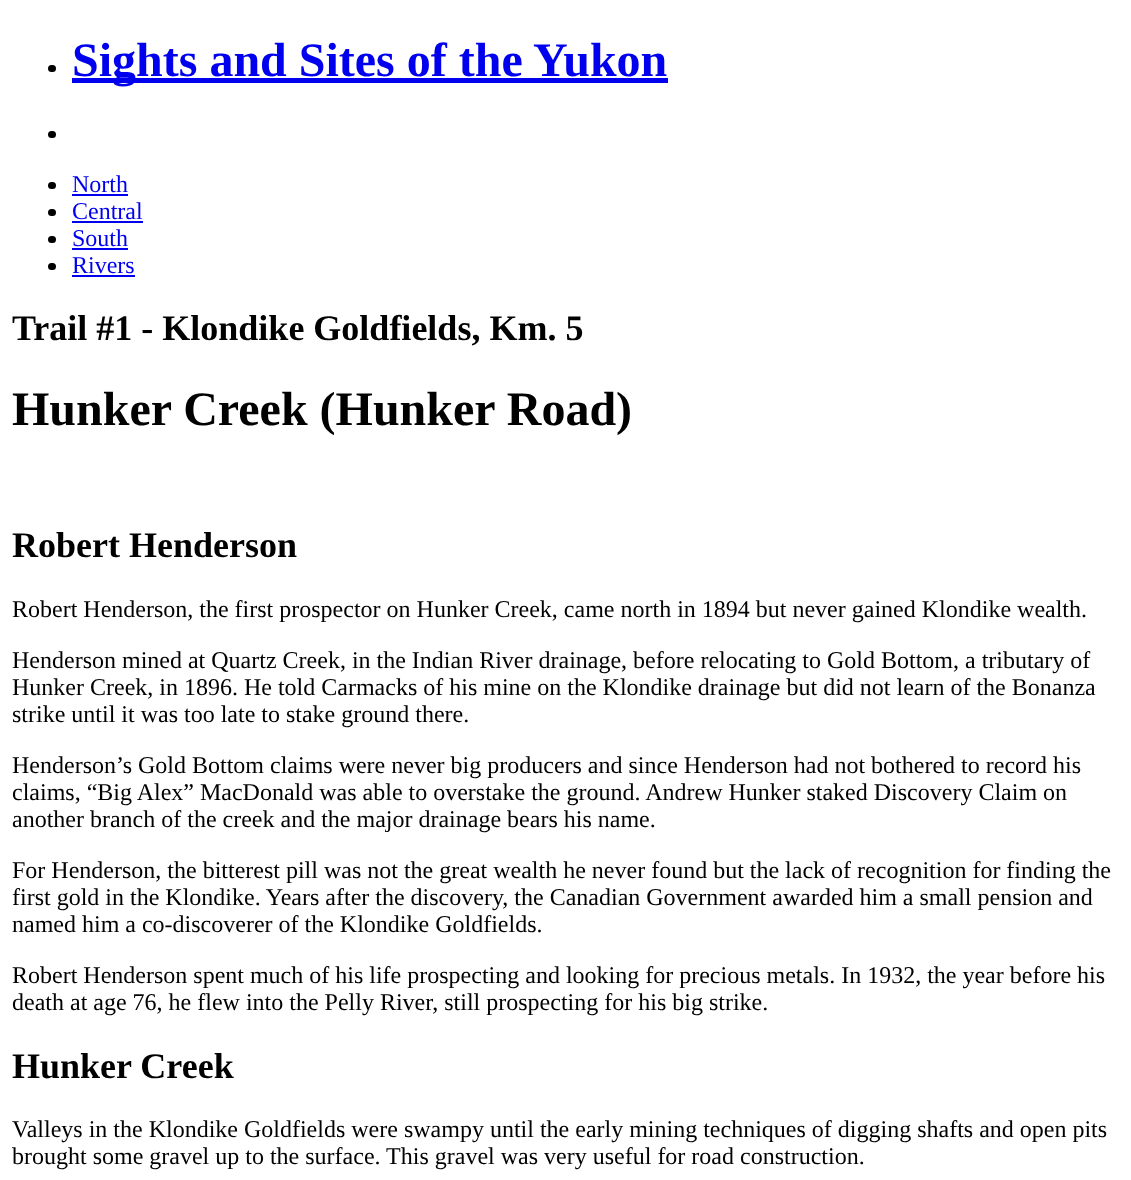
<!DOCTYPE html>
<meta charset="utf-8">
<style>body { margin: 0 } canvas { display: block }</style>
<canvas id="canvas" width="1131" height="1180"></canvas>
<script type="module">
  const canvas = document.getElementById("canvas");
  const ctx = canvas.getContext("2d");
  ctx.miterLimit = 4;
  ctx.fontKerning = "normal";

  ctx.fillStyle = "#ffffff";
  ctx.fillRect(0, 0, 1131, 1180);
  ctx.fillStyle = "#000000";
  ctx.beginPath();
  ctx.roundRect(48, 65, 8, 7, 3.5);
  ctx.fill();
  ctx.fillStyle = "#0000ee";
  ctx.fillRect(72, 78, 596, 5);
  ctx.font = "bold 48px Liberation Serif";
  ctx.fillText("Sights and Sites of the Yukon", 72, 76);
  ctx.fillStyle = "#000000";
  ctx.beginPath();
  ctx.roundRect(48, 131, 8, 7, 3.5);
  ctx.fill();
  ctx.beginPath();
  ctx.roundRect(48, 182, 8, 7, 3.5);
  ctx.fill();
  ctx.font = "24px Liberation Serif";
  ctx.fillStyle = "#0000ee";
  ctx.fillText("North", 72, 192);
  ctx.fillRect(72, 194, 56, 2);
  ctx.fillStyle = "#000000";
  ctx.beginPath();
  ctx.roundRect(48, 209, 8, 7, 3.5);
  ctx.fill();
  ctx.fillStyle = "#0000ee";
  ctx.fillText("Central", 72, 219);
  ctx.fillRect(72, 221, 71, 2);
  ctx.fillStyle = "#000000";
  ctx.beginPath();
  ctx.roundRect(48, 236, 8, 7, 3.5);
  ctx.fill();
  ctx.fillStyle = "#0000ee";
  ctx.fillText("South", 72, 246);
  ctx.fillRect(72, 248, 56, 2);
  ctx.fillStyle = "#000000";
  ctx.beginPath();
  ctx.roundRect(48, 263, 8, 7, 3.5);
  ctx.fill();
  ctx.fillStyle = "#0000ee";
  ctx.fillText("Rivers", 72, 273);
  ctx.fillRect(72, 275, 63, 2);
  ctx.font = "bold 36px Liberation Serif";
  ctx.fillStyle = "#000000";
  ctx.fillText("Trail #1 - Klondike Goldfields, Km. 5", 12, 340);
  ctx.font = "bold 48px Liberation Serif";
  ctx.fillText("Hunker Creek (Hunker Road)", 12, 425);
  ctx.font = "bold 36px Liberation Serif";
  ctx.fillText("Robert Henderson", 12, 557);
  ctx.font = "24px Liberation Serif";
  ctx.fillText("Robert Henderson, the first prospector on Hunker Creek, came north in 1894 but never gained Klondike wealth.", 12, 617);
  ctx.fillText("Henderson mined at Quartz Creek, in the Indian River drainage, before relocating to Gold Bottom, a tributary of", 12, 668);
  ctx.fillText("Hunker Creek, in 1896. He told Carmacks of his mine on the Klondike drainage but did not learn of the Bonanza", 12, 695);
  ctx.fillText("strike until it was too late to stake ground there.", 12, 722);
  ctx.fillText("Henderson’s Gold Bottom claims were never big producers and since Henderson had not bothered to record his", 12, 773);
  ctx.fillText("claims, “Big Alex” MacDonald was able to overstake the ground. Andrew Hunker staked Discovery Claim on", 12, 800);
  ctx.fillText("another branch of the creek and the major drainage bears his name.", 12, 827);
  ctx.fillText("For Henderson, the bitterest pill was not the great wealth he never found but the lack of recognition for finding the", 12, 878);
  ctx.fillText("first gold in the Klondike. Years after the discovery, the Canadian Government awarded him a small pension and", 12, 905);
  ctx.fillText("named him a co-discoverer of the Klondike Goldfields.", 12, 932);
  ctx.fillText("Robert Henderson spent much of his life prospecting and looking for precious metals. In 1932, the year before his", 12, 983);
  ctx.fillText("death at age 76, he flew into the Pelly River, still prospecting for his big strike.", 12, 1010);
  ctx.font = "bold 36px Liberation Serif";
  ctx.fillText("Hunker Creek", 12, 1078);
  ctx.font = "24px Liberation Serif";
  ctx.fillText("Valleys in the Klondike Goldfields were swampy until the early mining techniques of digging shafts and open pits", 12, 1137);
  ctx.fillText("brought some gravel up to the surface. This gravel was very useful for road construction.", 12, 1164);
</script>
